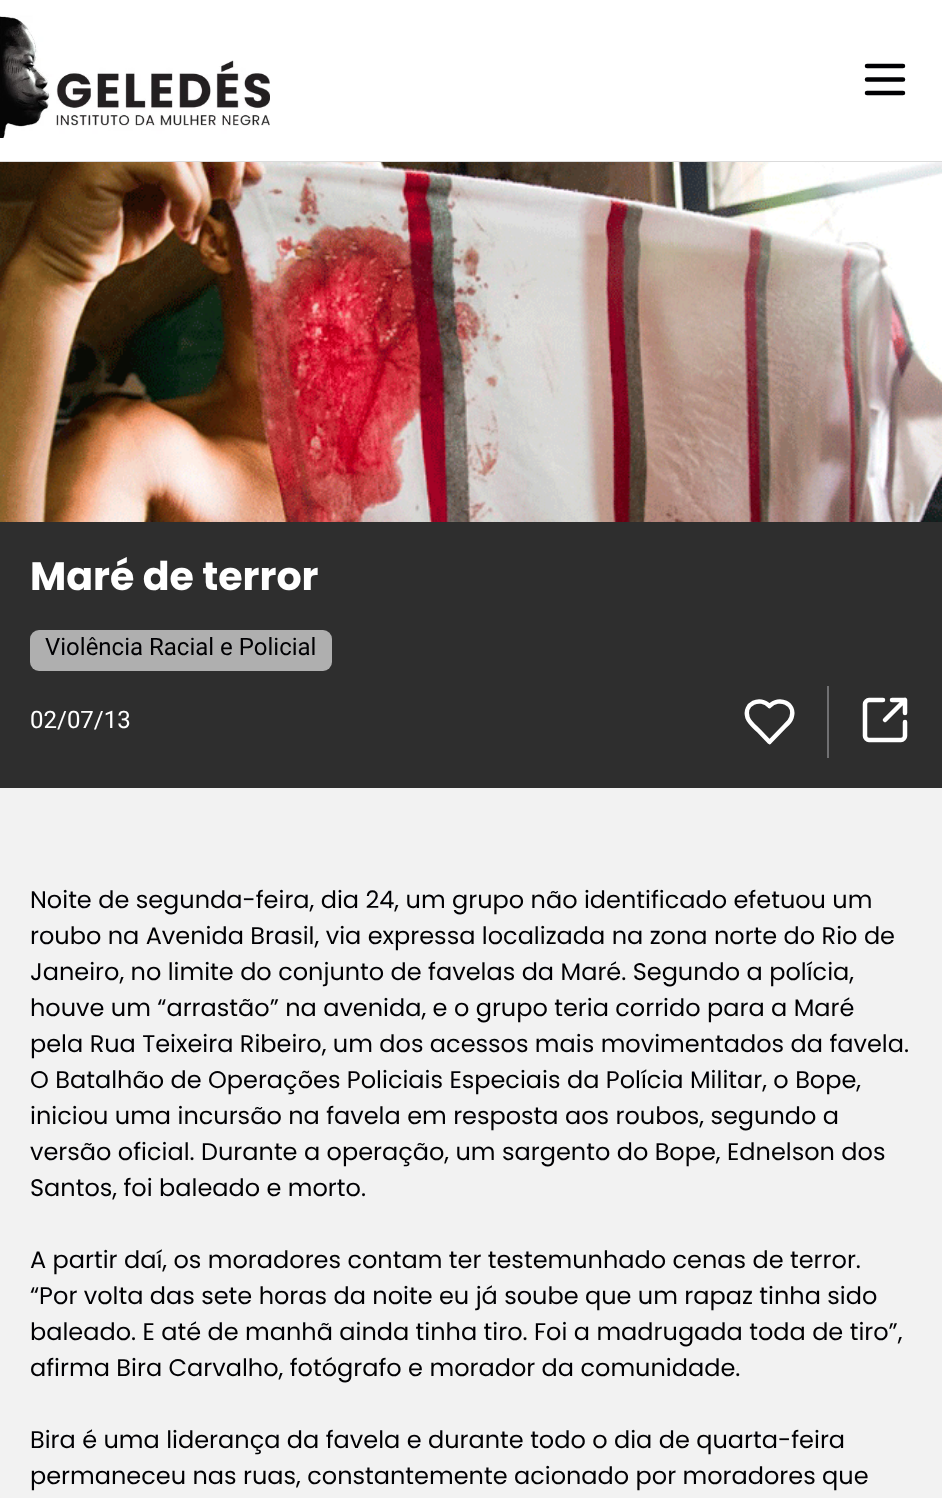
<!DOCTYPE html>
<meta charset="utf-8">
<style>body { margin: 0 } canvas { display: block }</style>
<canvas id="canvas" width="942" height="1498"></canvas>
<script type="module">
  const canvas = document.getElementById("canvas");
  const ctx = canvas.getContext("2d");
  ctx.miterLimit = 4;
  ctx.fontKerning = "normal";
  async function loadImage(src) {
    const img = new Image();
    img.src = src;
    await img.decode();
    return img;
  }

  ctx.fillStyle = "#f2f2f2";
  ctx.fillRect(0, 0, 942, 1498);
  ctx.fillStyle = "#ffffff";
  ctx.fillRect(0, 0, 942, 161);
  ctx.fillStyle = "#dbdbdb";
  ctx.fillRect(0, 161, 942, 1);
  ctx.drawImage(await loadImage("img1.png"), 0, 15, 270, 123);
  ctx.beginPath();
  ctx.moveTo(867, 79.5);
  ctx.lineTo(903, 79.5);
  ctx.moveTo(867, 66);
  ctx.lineTo(903, 66);
  ctx.moveTo(867, 93);
  ctx.lineTo(903, 93);
  ctx.strokeStyle = "#000003";
  ctx.lineWidth = 4.5;
  ctx.lineCap = "round";
  ctx.lineJoin = "round";
  ctx.stroke();
  ctx.drawImage(await loadImage("img2.png"), 0, 162, 942, 360);
  ctx.fillStyle = "#2e2e2e";
  ctx.fillRect(0, 522, 942, 266);
  ctx.font = "bold 39.5px Poppins";
  ctx.fillStyle = "#ffffff";
  ctx.fillText("Maré de terror", 30, 590);
  ctx.fillStyle = "#afafaf";
  ctx.beginPath();
  ctx.roundRect(30, 630, 302, 41, 9);
  ctx.fill();
  ctx.font = "24px Roboto";
  ctx.fillStyle = "#000003";
  ctx.fillText("Violência Racial e Policial", 45, 655);
  ctx.fillStyle = "#ffffff";
  ctx.fillText("02/07/13", 30, 728);
  ctx.beginPath();
  ctx.moveTo(785, 726);
  ctx.bezierCurveTo(788, 723.5, 790.5, 720.5, 791.5, 717.5);
  ctx.bezierCurveTo(796, 703.5, 779, 696, 769.5, 706);
  ctx.bezierCurveTo(760, 696, 743.5, 703.5, 747.5, 717.5);
  ctx.bezierCurveTo(749.5, 723, 755, 727, 759, 731);
  ctx.lineTo(769.5, 742);
  ctx.closePath();
  ctx.strokeStyle = "#ffffff";
  ctx.stroke();
  ctx.fillStyle = "#707072";
  ctx.fillRect(827, 686, 2, 72);
  ctx.beginPath();
  ctx.moveTo(905, 722);
  ctx.lineTo(905, 736);
  ctx.bezierCurveTo(905, 738, 903, 740, 901, 740);
  ctx.lineTo(869, 740);
  ctx.bezierCurveTo(867, 740, 865, 738, 865, 736);
  ctx.lineTo(865, 704);
  ctx.bezierCurveTo(865, 702, 867, 700, 869, 700);
  ctx.lineTo(883, 700);
  ctx.moveTo(905, 700);
  ctx.lineTo(885, 720);
  ctx.moveTo(892, 700);
  ctx.lineTo(905, 700);
  ctx.lineTo(905, 713);
  ctx.stroke();
  ctx.font = "24px Poppins";
  ctx.fillStyle = "#000003";
  ctx.fillText("Noite de segunda-feira, dia 24, um grupo não identificado efetuou um", 30, 908);
  ctx.fillText("roubo na Avenida Brasil, via expressa localizada na zona norte do Rio de", 30, 944);
  ctx.fillText("Janeiro, no limite do conjunto de favelas da Maré. Segundo a polícia,", 30, 980);
  ctx.fillText("houve um “arrastão” na avenida, e o grupo teria corrido para a Maré", 30, 1016);
  ctx.fillText("pela Rua Teixeira Ribeiro, um dos acessos mais movimentados da favela.", 30, 1052);
  ctx.fillText("O Batalhão de Operações Policiais Especiais da Polícia Militar, o Bope,", 30, 1088);
  ctx.fillText("iniciou uma incursão na favela em resposta aos roubos, segundo a", 30, 1124);
  ctx.fillText("versão oficial. Durante a operação, um sargento do Bope, Ednelson dos", 30, 1160);
  ctx.fillText("Santos, foi baleado e morto.", 30, 1196);
  ctx.fillText("A partir daí, os moradores contam ter testemunhado cenas de terror.", 30, 1268);
  ctx.fillText("“Por volta das sete horas da noite eu já soube que um rapaz tinha sido", 30, 1304);
  ctx.fillText("baleado. E até de manhã ainda tinha tiro. Foi a madrugada toda de tiro”,", 30, 1340);
  ctx.fillText("afirma Bira Carvalho, fotógrafo e morador da comunidade.", 30, 1376);
  ctx.fillText("Bira é uma liderança da favela e durante todo o dia de quarta-feira", 30, 1448);
  ctx.fillText("permaneceu nas ruas, constantemente acionado por moradores que", 30, 1484);
</script>
